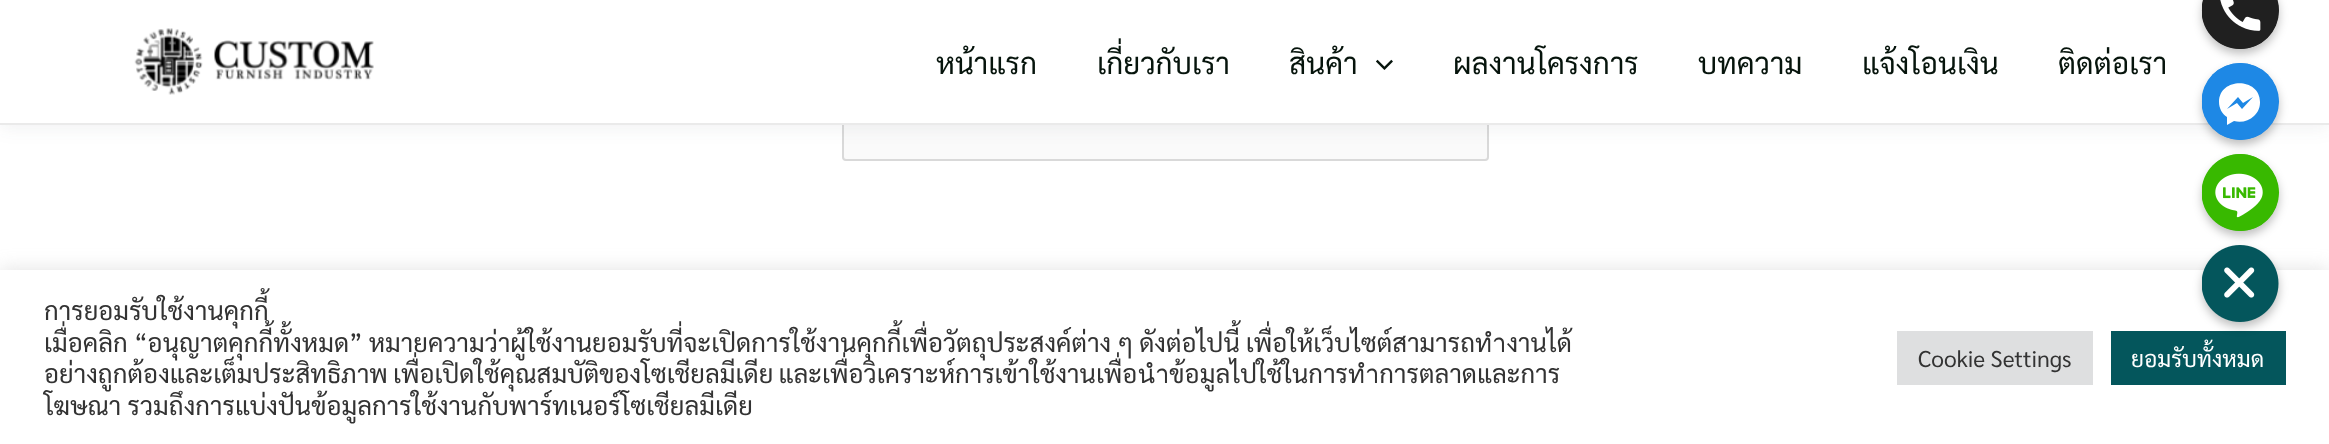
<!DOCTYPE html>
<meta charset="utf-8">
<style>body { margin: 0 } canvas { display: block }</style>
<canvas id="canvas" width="2329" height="444"></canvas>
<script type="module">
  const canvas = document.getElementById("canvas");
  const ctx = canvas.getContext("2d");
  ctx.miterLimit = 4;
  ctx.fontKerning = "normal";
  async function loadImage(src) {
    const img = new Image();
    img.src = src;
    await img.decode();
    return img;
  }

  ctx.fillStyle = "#ffffff";
  ctx.fillRect(0, 0, 2329, 444);
  ctx.fillStyle = "#fafafa";
  ctx.beginPath();
  ctx.roundRect(843, 66, 645, 94, 3);
  ctx.fill();
  ctx.strokeStyle = "#d9d9d9";
  ctx.lineWidth = 2;
  ctx.stroke();
  ctx.fillStyle = "rgba(36, 50, 66, 0.07)";
  ctx.filter = "blur(9px)";
  ctx.beginPath();
  ctx.rect(0, 4, 2329, 124);
  ctx.fill();
  ctx.filter = "none";
  ctx.fillStyle = "#ffffff";
  ctx.fillRect(0, 0, 2329, 123);
  ctx.fillStyle = "#eaeaea";
  ctx.fillRect(0, 123, 2329, 2);
  ctx.drawImage(await loadImage("img1.png"), 134, 28, 240, 67);
  ctx.font = "29.75px Sarabun";
  ctx.fillStyle = "#06140c";
  ctx.fillText("หน้าแรก", 936, 74);
  ctx.fillText("เกี่ยวกับเรา", 1097, 74);
  ctx.fillText("สินค้า", 1289, 74);
  ctx.drawImage(await loadImage("img2.png"), 1376, 59, 17, 11);
  ctx.fillText("ผลงานโครงการ", 1453, 74);
  ctx.fillText("บทความ", 1698, 74);
  ctx.fillText("แจ้งโอนเงิน", 1862, 74);
  ctx.fillText("ติดต่อเรา", 2058, 74);
  ctx.fillStyle = "rgba(0, 0, 0, 0.25)";
  ctx.filter = "blur(5px)";
  ctx.beginPath();
  ctx.roundRect(2202, -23, 77, 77, 38.5);
  ctx.fill();
  ctx.filter = "none";
  ctx.fillStyle = "#202020";
  ctx.beginPath();
  ctx.arc(2240.5, 10.5, 38.5, 0, Math.PI * 2);
  ctx.fill();
  ctx.drawImage(await loadImage("img3.png"), 2202, 0, 77, 49);
  ctx.fillStyle = "rgba(0, 0, 0, 0.25)";
  ctx.filter = "blur(5px)";
  ctx.beginPath();
  ctx.roundRect(2202, 68, 77, 77, 38.5);
  ctx.fill();
  ctx.filter = "none";
  ctx.fillStyle = "#1e88e5";
  ctx.beginPath();
  ctx.arc(2240.5, 101.5, 38.5, 0, Math.PI * 2);
  ctx.fill();
  ctx.save();
  ctx.beginPath();
  ctx.rect(2202, 63, 77, 77);
  ctx.clip();
  ctx.beginPath();
  ctx.arc(2240, 101.5, 38.5, 0, Math.PI * 2);
  ctx.fill();
  ctx.restore();
  ctx.fillStyle = "#ffffff";
  ctx.beginPath();
  ctx.moveTo(2219, 102);
  ctx.bezierCurveTo(2219, 77, 2260, 77, 2260, 102);
  ctx.bezierCurveTo(2260, 108, 2258, 112, 2254, 116);
  ctx.bezierCurveTo(2249, 121, 2241, 123, 2234, 121);
  ctx.lineTo(2227, 125);
  ctx.lineTo(2227, 117);
  ctx.bezierCurveTo(2222, 114, 2219, 108, 2219, 102);
  ctx.closePath();
  ctx.moveTo(2237, 103);
  ctx.lineTo(2242, 109);
  ctx.lineTo(2253, 97);
  ctx.lineTo(2243, 103);
  ctx.lineTo(2238, 97);
  ctx.lineTo(2227, 109);
  ctx.closePath();
  ctx.fill("evenodd");
  ctx.fillStyle = "rgba(0, 0, 0, 0.25)";
  ctx.filter = "blur(5px)";
  ctx.beginPath();
  ctx.roundRect(2202, 159, 77, 77, 38.5);
  ctx.fill();
  ctx.filter = "none";
  ctx.fillStyle = "#38b900";
  ctx.beginPath();
  ctx.arc(2240.5, 192.5, 38.5, 0, Math.PI * 2);
  ctx.fill();
  ctx.drawImage(await loadImage("img4.png"), 2202, 154, 77, 77);
  ctx.fillStyle = "rgba(172, 171, 171, 0.3)";
  ctx.filter = "blur(9px)";
  ctx.beginPath();
  ctx.rect(0, 268, 2329, 175);
  ctx.fill();
  ctx.filter = "none";
  ctx.fillStyle = "#ffffff";
  ctx.fillRect(0, 270, 2329, 174);
  ctx.fillStyle = "#04565c";
  ctx.fillRect(2111, 331, 175, 54);
  ctx.fillStyle = "rgba(0, 0, 0, 0.25)";
  ctx.filter = "blur(5px)";
  ctx.beginPath();
  ctx.roundRect(2202, 250, 77, 77, 38.5);
  ctx.fill();
  ctx.filter = "none";
  ctx.drawImage(await loadImage("img5.png"), 2202, 245, 77, 77);
  ctx.font = "25.67px Sarabun";
  ctx.fillStyle = "#333333";
  ctx.fillText("การยอมรับใช้งานคุกกี้", 44, 320);
  ctx.wordSpacing = "-0.25px";
  ctx.fillText("เมื่อคลิก “อนุญาตคุกกี้ทั้งหมด” หมายความว่าผู้ใช้งานยอมรับที่จะเปิดการใช้งานคุกกี้เพื่อวัตถุประสงค์ต่าง ๆ ดังต่อไปนี้ เพื่อให้เว็บไซต์สามารถทำงานได้", 44, 352);
  ctx.wordSpacing = "-1px";
  ctx.fillText("อย่างถูกต้องและเต็มประสิทธิภาพ เพื่อเปิดใช้คุณสมบัติของโซเชียลมีเดีย และเพื่อวิเคราะห์การเข้าใช้งานเพื่อนำข้อมูลไปใช้ในการทำการตลาดและการ", 44, 383);
  ctx.wordSpacing = "0px";
  ctx.fillText("โฆษณา รวมถึงการแบ่งปันข้อมูลการใช้งานกับพาร์ทเนอร์โซเชียลมีเดีย", 44, 415);
  ctx.fillStyle = "#dedfe0";
  ctx.fillRect(1897, 331, 196, 54);
  ctx.font = "22.75px Sarabun";
  ctx.fillStyle = "#333333";
  ctx.fillText("Cookie Settings", 1918, 367);
  ctx.fillStyle = "#ffffff";
  ctx.fillText("ยอมรับทั้งหมด", 2131, 367);
</script>
